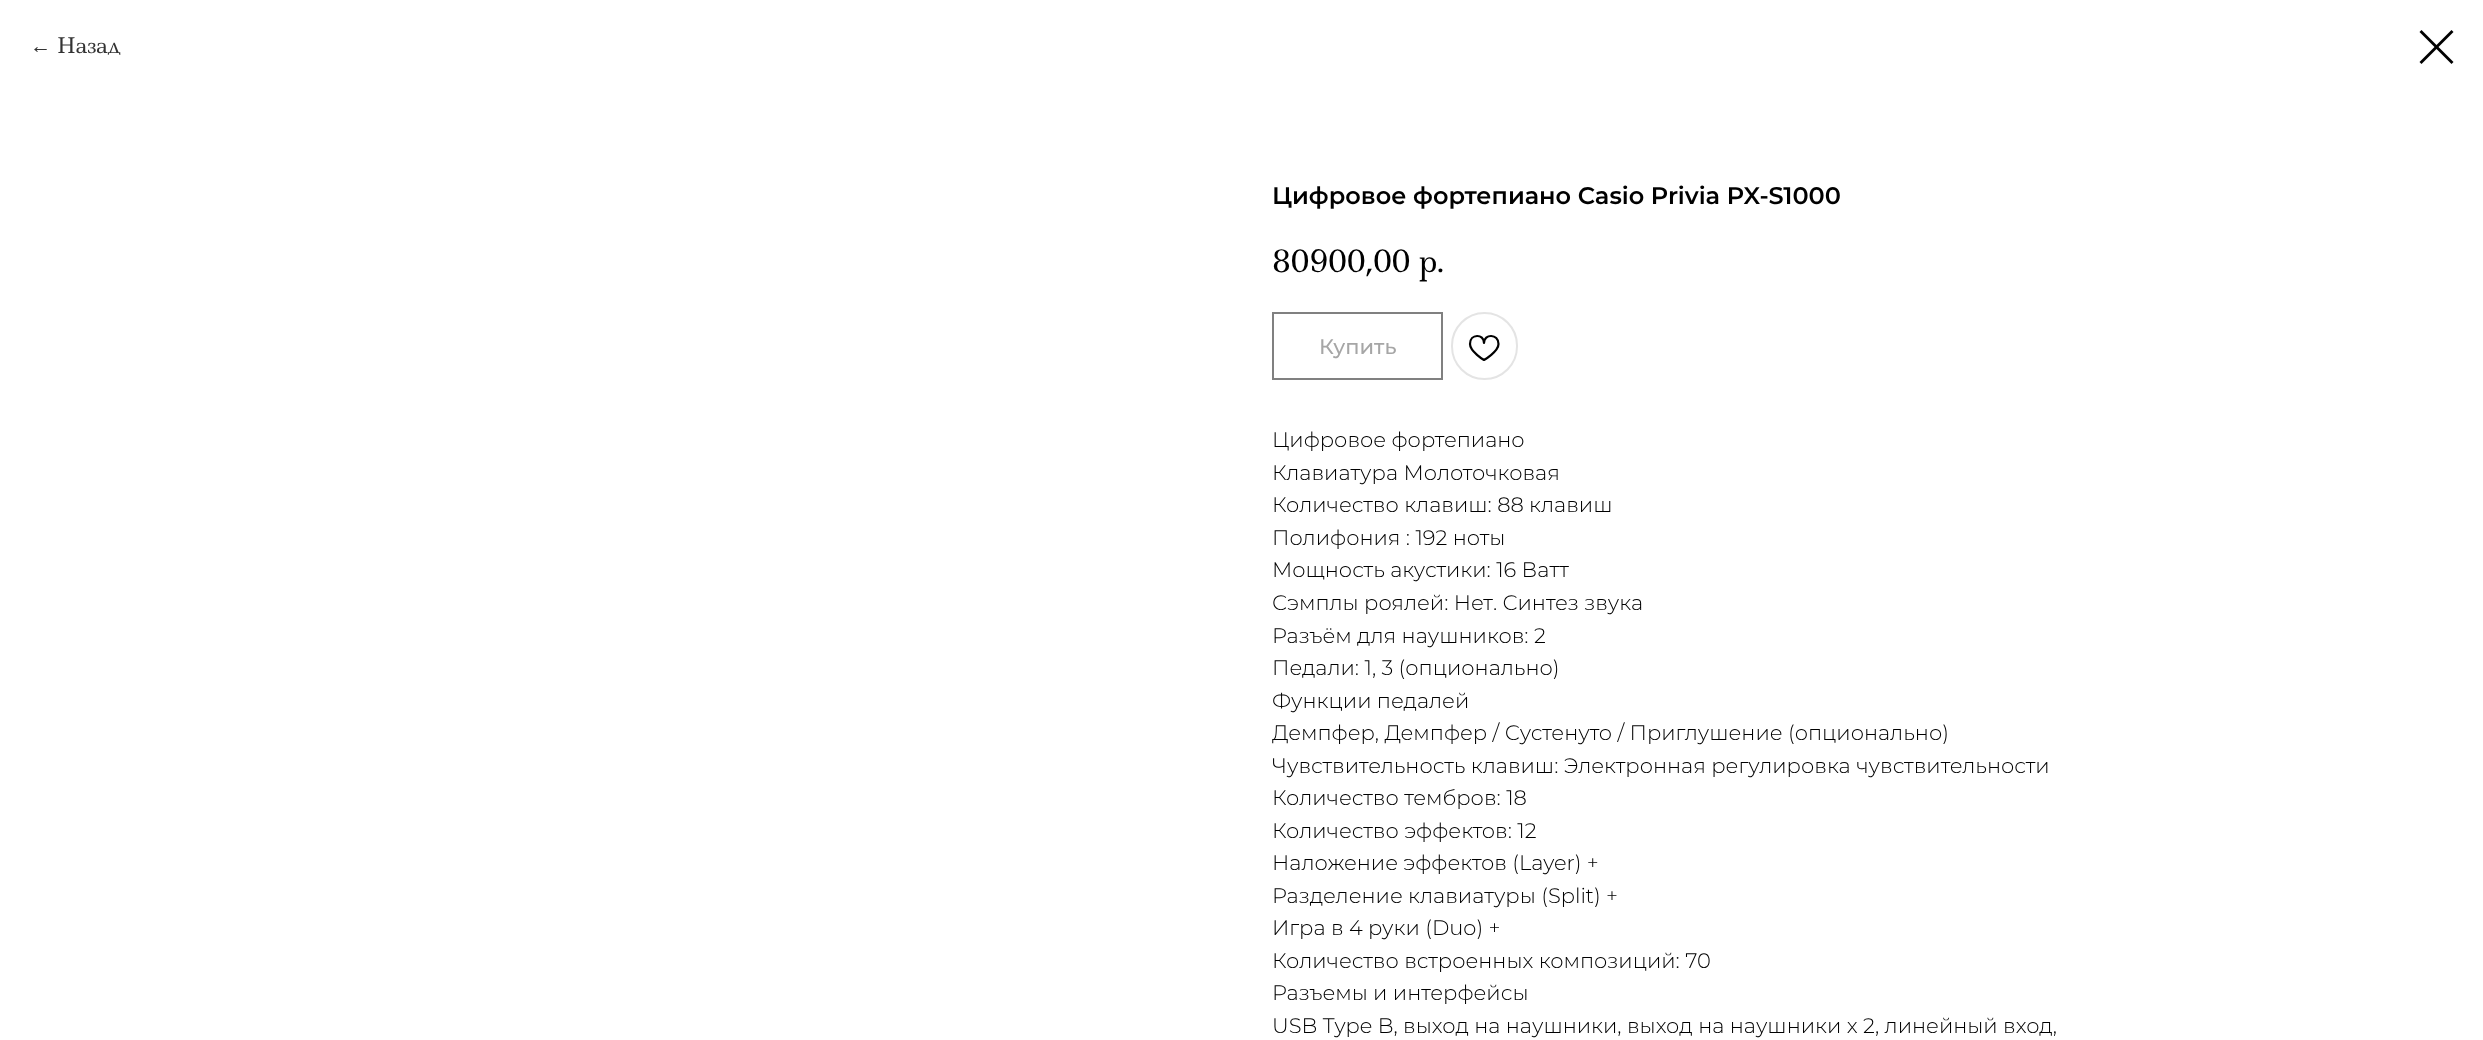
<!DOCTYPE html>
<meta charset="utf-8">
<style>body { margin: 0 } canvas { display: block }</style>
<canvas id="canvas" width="2483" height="1040"></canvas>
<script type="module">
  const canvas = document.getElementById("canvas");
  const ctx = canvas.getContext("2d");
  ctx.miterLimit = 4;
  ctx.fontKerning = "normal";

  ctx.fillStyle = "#ffffff";
  ctx.fillRect(0, 0, 2483, 1040);
  ctx.font = "21px Liberation Sans";
  ctx.fillStyle = "#333333";
  ctx.fillText("←", 30, 53);
  ctx.font = "21px Ledger";
  ctx.fillText("Назад", 57, 53);
  ctx.fillStyle = "#000000";
  ctx.beginPath();
  ctx.moveTo(2419.5, 32);
  ctx.lineTo(2421.5, 30);
  ctx.lineTo(2453.5, 62);
  ctx.lineTo(2451.5, 64);
  ctx.closePath();
  ctx.fill("evenodd");
  ctx.beginPath();
  ctx.moveTo(2451.5, 30);
  ctx.lineTo(2453.5, 32);
  ctx.lineTo(2421.5, 64);
  ctx.lineTo(2419.5, 62);
  ctx.closePath();
  ctx.fill("evenodd");
  ctx.font = "600 24px Montserrat";
  ctx.fillText("Цифровое фортепиано Casio Privia PX-S1000", 1272, 204);
  ctx.font = "30px Ledger";
  ctx.fillText("80900,00 р.", 1272, 272);
  ctx.strokeStyle = "#808080";
  ctx.lineWidth = 2;
  ctx.strokeRect(1273, 313, 169, 66);
  ctx.font = "500 21px Montserrat";
  ctx.fillStyle = "#a6a6a6";
  ctx.fillText("Купить", 1319, 354);
  ctx.beginPath();
  ctx.roundRect(1452, 313, 65, 66, 32.5);
  ctx.strokeStyle = "#e4e4e4";
  ctx.stroke();
  ctx.beginPath();
  ctx.moveTo(1498.5, 344);
  ctx.bezierCurveTo(1498.5, 351.5, 1484, 360, 1484, 360);
  ctx.bezierCurveTo(1484, 360, 1470, 351.5, 1470, 344);
  ctx.bezierCurveTo(1470, 333.5, 1484, 333.5, 1484, 343);
  ctx.bezierCurveTo(1484, 333.5, 1498.5, 333.5, 1498.5, 344);
  ctx.closePath();
  ctx.strokeStyle = "#000000";
  ctx.lineWidth = 2.2;
  ctx.lineJoin = "round";
  ctx.stroke();
  ctx.font = "300 21px Montserrat";
  ctx.fillStyle = "#000000";
  ctx.fillText("Цифровое фортепиано", 1272, 447);
  ctx.fillText("Клавиатура Молоточковая", 1272, 480);
  ctx.fillText("Количество клавиш: 88 клавиш", 1272, 512);
  ctx.fillText("Полифония : 192 ноты", 1272, 545);
  ctx.fillText("Мощность акустики: 16 Ватт", 1272, 577);
  ctx.fillText("Сэмплы роялей: Нет. Синтез звука", 1272, 610);
  ctx.fillText("Разъём для наушников: 2", 1272, 643);
  ctx.fillText("Педали: 1, 3 (опционально)", 1272, 675);
  ctx.fillText("Функции педалей", 1272, 708);
  ctx.fillText("Демпфер, Демпфер / Сустенуто / Приглушение (опционально)", 1272, 740);
  ctx.fillText("Чувствительность клавиш: Электронная регулировка чувствительности", 1272, 773);
  ctx.fillText("Количество тембров: 18", 1272, 805);
  ctx.fillText("Количество эффектов: 12", 1272, 838);
  ctx.fillText("Наложение эффектов (Layer) +", 1272, 870);
  ctx.fillText("Разделение клавиатуры (Split) +", 1272, 903);
  ctx.fillText("Игра в 4 руки (Duo) +", 1272, 935);
  ctx.fillText("Количество встроенных композиций: 70", 1272, 968);
  ctx.fillText("Разъемы и интерфейсы", 1272, 1000);
  ctx.fillText("USB Type B, выход на наушники, выход на наушники x 2, линейный вход,", 1272, 1033);
</script>
